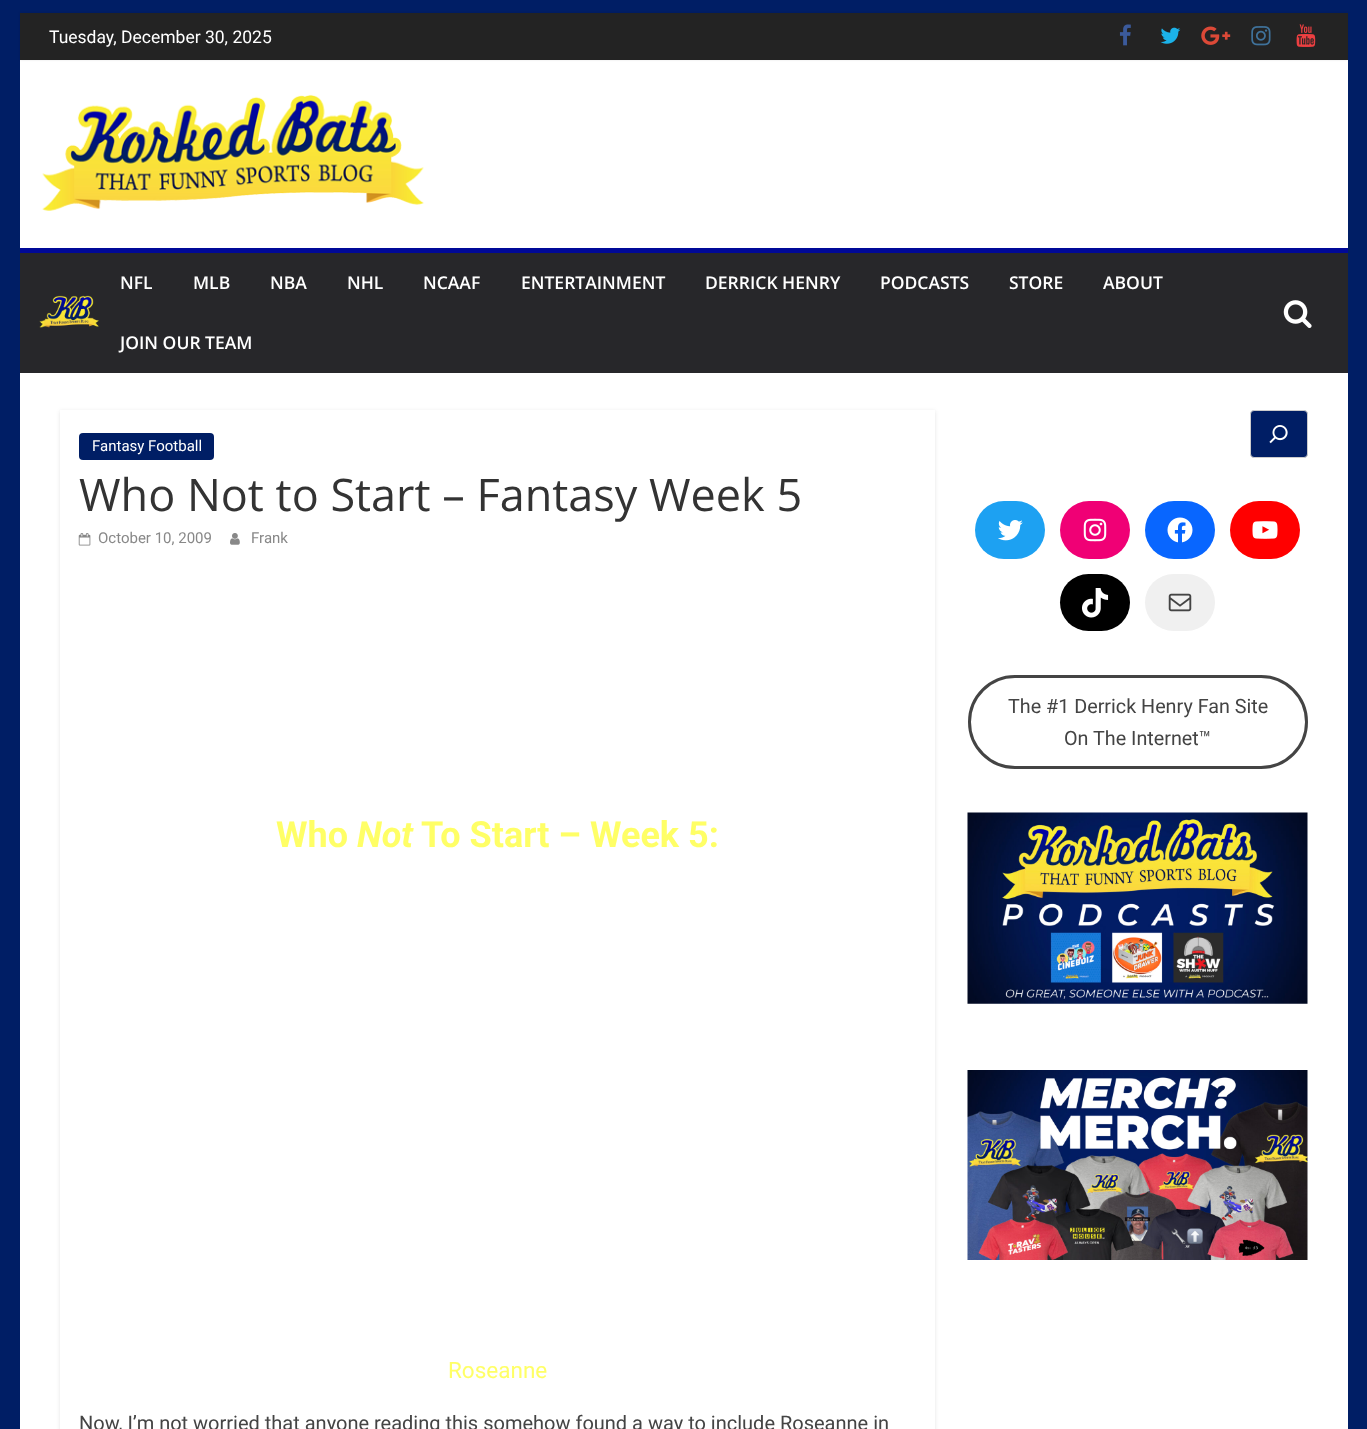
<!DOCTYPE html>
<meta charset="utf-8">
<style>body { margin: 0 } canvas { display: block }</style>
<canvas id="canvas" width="1367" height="1429"></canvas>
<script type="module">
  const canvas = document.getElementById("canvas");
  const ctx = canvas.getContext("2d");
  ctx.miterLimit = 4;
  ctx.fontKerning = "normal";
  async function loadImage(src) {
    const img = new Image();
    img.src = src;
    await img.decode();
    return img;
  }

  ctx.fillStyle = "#001e65";
  ctx.fillRect(0, 0, 1367, 1429);
  ctx.fillStyle = "#ffffff";
  ctx.fillRect(20, 60, 1328, 188);
  ctx.fillStyle = "rgba(0, 0, 0, 0.1)";
  ctx.filter = "blur(1px)";
  ctx.beginPath();
  ctx.rect(20, 13, 1328, 47);
  ctx.fill();
  ctx.filter = "none";
  ctx.fillStyle = "#232323";
  ctx.fillRect(20, 13, 1328, 47);
  ctx.font = "17.5px Roboto";
  ctx.fillStyle = "#ffffff";
  ctx.fillText("Tuesday, December 30, 2025", 49, 43);
  ctx.drawImage(await loadImage("img1.png"), 1119, 24, 12, 22);
  ctx.drawImage(await loadImage("img2.png"), 1160, 27, 21, 17);
  ctx.drawImage(await loadImage("img3.png"), 1201, 26, 30, 19);
  ctx.drawImage(await loadImage("img4.png"), 1251, 26, 20, 20);
  ctx.drawImage(await loadImage("img5.png"), 1296, 24, 20, 23);
  ctx.drawImage(await loadImage("img6.png"), 42, 94, 382, 117);
  ctx.fillStyle = "#27272a";
  ctx.fillRect(20, 253, 1328, 120);
  ctx.fillStyle = "#000998";
  ctx.fillRect(20, 248, 1328, 5);
  ctx.drawImage(await loadImage("img7.png"), 39, 295, 60, 33);
  ctx.font = "600 17.5px Open Sans";
  ctx.fillStyle = "#ffffff";
  ctx.fillText("NFL", 120, 289);
  ctx.fillText("MLB", 193, 289);
  ctx.fillText("NBA", 270, 289);
  ctx.fillText("NHL", 347, 289);
  ctx.fillText("NCAAF", 423, 289);
  ctx.fillText("ENTERTAINMENT", 521, 289);
  ctx.fillText("DERRICK HENRY", 705, 289);
  ctx.fillText("PODCASTS", 880, 289);
  ctx.fillText("STORE", 1009, 289);
  ctx.fillText("ABOUT", 1103, 289);
  ctx.fillText("JOIN OUR TEAM", 120, 349);
  ctx.drawImage(await loadImage("img8.png"), 1283, 300, 29, 28);
  ctx.fillRect(20, 373, 1328, 1056);
  ctx.save();
  ctx.beginPath();
  ctx.moveTo(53, 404);
  ctx.lineTo(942, 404);
  ctx.lineTo(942, 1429);
  ctx.lineTo(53, 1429);
  ctx.closePath();
  ctx.moveTo(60, 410);
  ctx.lineTo(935, 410);
  ctx.lineTo(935, 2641);
  ctx.lineTo(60, 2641);
  ctx.closePath();
  ctx.clip("evenodd");
  ctx.fillStyle = "rgba(0, 0, 0, 0.1)";
  ctx.filter = "blur(2px)";
  ctx.beginPath();
  ctx.rect(60, 411, 875, 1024);
  ctx.fill();
  ctx.filter = "none";
  ctx.restore();
  ctx.fillStyle = "#001e65";
  ctx.beginPath();
  ctx.roundRect(79, 433, 135, 27, 4);
  ctx.fill();
  ctx.font = "15px Roboto";
  ctx.fillStyle = "#ffffff";
  ctx.fillText("Fantasy Football", 92, 451);
  ctx.font = "45px Open Sans";
  ctx.fillStyle = "#333333";
  ctx.fillText("Who Not to Start – Fantasy Week 5", 79, 511);
  ctx.drawImage(await loadImage("img9.png"), 78, 533, 13, 13);
  ctx.font = "15px Roboto";
  ctx.fillStyle = "#888888";
  ctx.fillText("October 10, 2009", 98, 543);
  ctx.drawImage(await loadImage("img10.png"), 230, 533, 10, 12);
  ctx.fillText("Frank", 251, 543);
  ctx.font = "bold 36px Roboto";
  ctx.fillStyle = "#ffff66";
  ctx.fillText("Who", 276, 847);
  ctx.font = "italic bold 36px Roboto";
  ctx.fillText("Not", 357, 847);
  ctx.font = "bold 36px Roboto";
  ctx.fillText("To Start – Week 5:", 421, 847);
  ctx.font = "22.5px Roboto";
  ctx.fillText("Roseanne", 448, 1378);
  ctx.font = "20px Roboto";
  ctx.fillStyle = "#444444";
  ctx.fillText("Now, I’m not worried that anyone reading this somehow found a way to include Roseanne in", 79, 1430);
  ctx.fillStyle = "#001e65";
  ctx.beginPath();
  ctx.roundRect(1250.5, 410.5, 57, 47, 3.5);
  ctx.fill();
  ctx.strokeStyle = "#cccccc";
  ctx.stroke();
  ctx.drawImage(await loadImage("img11.png"), 1269, 425, 19, 19);
  ctx.fillStyle = "#1da1f2";
  ctx.beginPath();
  ctx.roundRect(975, 501, 70, 58, 29);
  ctx.fill();
  ctx.drawImage(await loadImage("img12.png"), 998, 520, 25, 21);
  ctx.fillStyle = "#f00075";
  ctx.beginPath();
  ctx.roundRect(1060, 501, 70, 58, 29);
  ctx.fill();
  ctx.drawImage(await loadImage("img13.png"), 1083, 518, 24, 24);
  ctx.fillStyle = "#0866ff";
  ctx.beginPath();
  ctx.roundRect(1145, 501, 70, 58, 29);
  ctx.fill();
  ctx.drawImage(await loadImage("img14.png"), 1167, 517, 26, 26);
  ctx.fillStyle = "#ff0000";
  ctx.beginPath();
  ctx.roundRect(1230, 501, 70, 58, 29);
  ctx.fill();
  ctx.drawImage(await loadImage("img15.png"), 1252, 521, 26, 18);
  ctx.fillStyle = "#000000";
  ctx.beginPath();
  ctx.roundRect(1060, 574, 70, 57, 28.5);
  ctx.fill();
  ctx.drawImage(await loadImage("img16.png"), 1082, 588, 27, 30);
  ctx.fillStyle = "#f0f0f0";
  ctx.beginPath();
  ctx.roundRect(1145, 574, 70, 57, 28.5);
  ctx.fill();
  ctx.drawImage(await loadImage("img17.png"), 1168, 593, 24, 19);
  ctx.beginPath();
  ctx.roundRect(969.5, 676.5, 337, 91, 45.5);
  ctx.strokeStyle = "#444444";
  ctx.lineWidth = 3;
  ctx.stroke();
  ctx.font = "19.75px Roboto";
  ctx.fillStyle = "#444444";
  ctx.fillText("The #1 Derrick Henry Fan Site", 1008, 713);
  ctx.fillText("On The Internet™", 1064, 745);
  ctx.drawImage(await loadImage("img18.png"), 967, 812, 341, 192);
  ctx.drawImage(await loadImage("img19.png"), 967, 1070, 341, 190);
</script>
